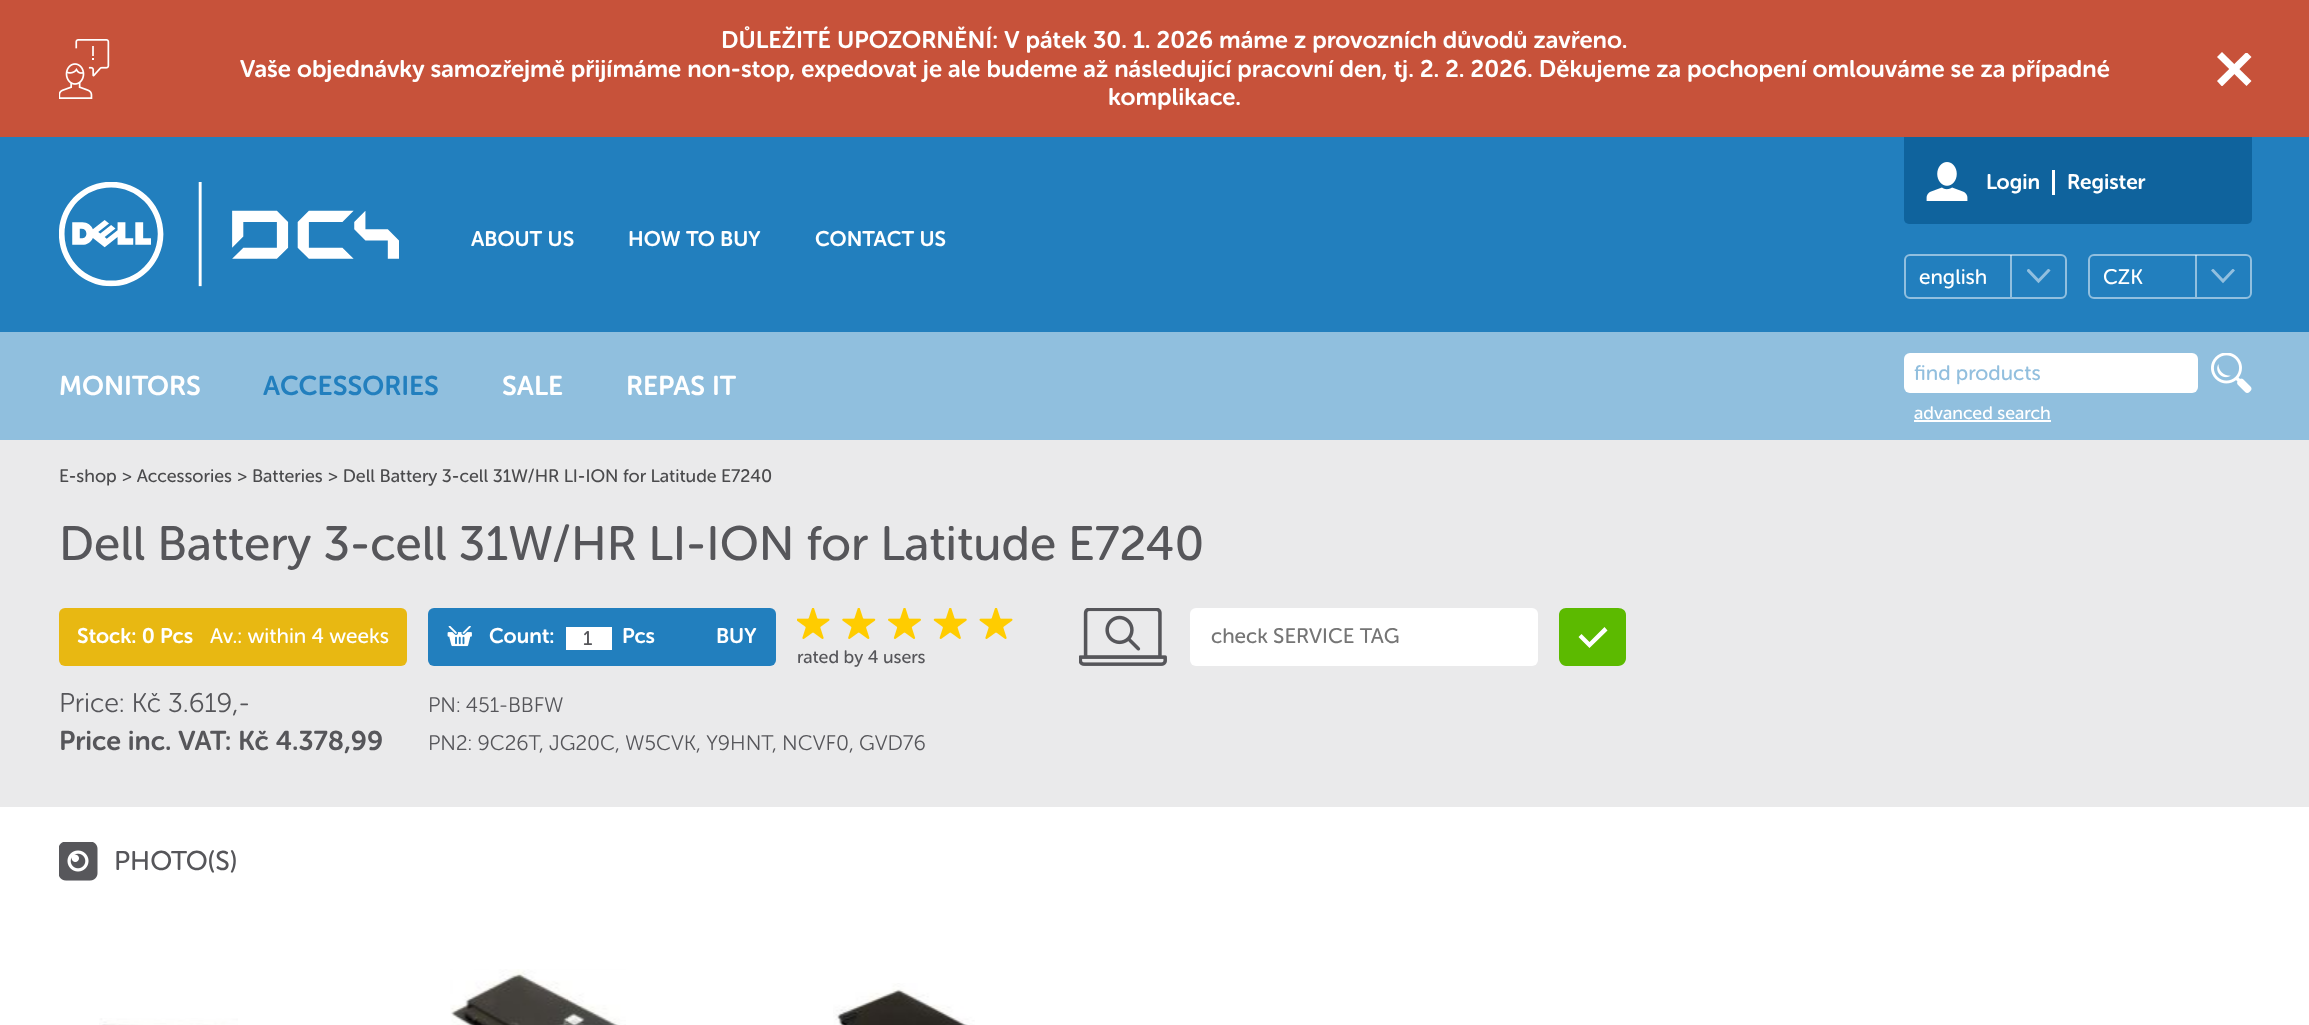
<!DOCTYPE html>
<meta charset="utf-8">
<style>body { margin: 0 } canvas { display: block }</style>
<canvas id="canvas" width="2309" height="1025"></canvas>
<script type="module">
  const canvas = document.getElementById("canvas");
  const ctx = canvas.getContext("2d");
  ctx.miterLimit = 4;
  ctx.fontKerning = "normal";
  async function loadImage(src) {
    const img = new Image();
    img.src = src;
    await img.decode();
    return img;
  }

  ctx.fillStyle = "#c7523a";
  ctx.fillRect(0, 0, 2309, 1025);
  ctx.drawImage(await loadImage("img1.png"), 59, 39, 51, 60);
  ctx.font = "600 24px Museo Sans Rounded";
  ctx.fillStyle = "#ffffff";
  ctx.fillText("DŮLEŽITÉ UPOZORNĚNÍ: V pátek 30. 1. 2026 máme z provozních důvodů zavřeno.", 721, 48);
  ctx.fillText("Vaše objednávky samozřejmě přijímáme non-stop, expedovat je ale budeme až následující pracovní den, tj. 2. 2. 2026. Děkujeme za pochopení omlouváme se za případné", 240, 77);
  ctx.fillText("komplikace.", 1108, 105);
  ctx.beginPath();
  ctx.moveTo(2251.5, 81);
  ctx.lineTo(2246.5, 86);
  ctx.lineTo(2217, 57);
  ctx.lineTo(2222, 52);
  ctx.closePath();
  ctx.fill();
  ctx.save();
  ctx.beginPath();
  ctx.rect(2217, 53, 35, 33);
  ctx.clip();
  ctx.beginPath();
  ctx.moveTo(2246.5, 52);
  ctx.lineTo(2251.5, 57);
  ctx.lineTo(2222, 86.5);
  ctx.lineTo(2217, 81);
  ctx.closePath();
  ctx.fill();
  ctx.restore();
  ctx.fillStyle = "#227fbe";
  ctx.fillRect(0, 137, 2309, 195);
  ctx.drawImage(await loadImage("img2.png"), 59, 182, 340, 105);
  ctx.fillStyle = "#0f639d";
  ctx.beginPath();
  ctx.roundRect(1904, 137, 348, 87, [0, 0, 5, 5]);
  ctx.fill();
  ctx.drawImage(await loadImage("img3.png"), 1926, 162, 42, 39);
  ctx.fillStyle = "#ffffff";
  ctx.fillRect(2052, 170, 3, 25);
  ctx.font = "600 21px Museo Sans Rounded";
  ctx.fillText("Login", 1986, 189);
  ctx.fillText("Register", 2067, 189);
  ctx.fillText("ABOUT US", 471, 246);
  ctx.fillText("HOW TO BUY", 628, 246);
  ctx.fillText("CONTACT US", 815, 246);
  ctx.save();
  ctx.beginPath();
  ctx.rect(2027, 269, 24, 15);
  ctx.clip();
  ctx.beginPath();
  ctx.moveTo(2027.5, 269.5);
  ctx.lineTo(2038.5, 281);
  ctx.lineTo(2049.5, 269.5);
  ctx.strokeStyle = "#91bfdf";
  ctx.lineWidth = 3;
  ctx.stroke();
  ctx.restore();
  ctx.beginPath();
  ctx.roundRect(1905, 255, 161, 43, 5);
  ctx.strokeStyle = "#91bfdf";
  ctx.lineWidth = 2;
  ctx.stroke();
  ctx.font = "21px Museo Sans Rounded";
  ctx.fillText("english", 1919, 284);
  ctx.fillStyle = "rgba(255, 255, 255, 0.5)";
  ctx.fillRect(2010, 255, 2, 42);
  ctx.save();
  ctx.beginPath();
  ctx.rect(2211, 269, 24, 15);
  ctx.clip();
  ctx.beginPath();
  ctx.moveTo(2212, 269.5);
  ctx.lineTo(2223, 281);
  ctx.lineTo(2234, 269.5);
  ctx.lineWidth = 3;
  ctx.stroke();
  ctx.restore();
  ctx.beginPath();
  ctx.roundRect(2089, 255, 162, 43, 5);
  ctx.stroke();
  ctx.fillStyle = "#ffffff";
  ctx.fillText("CZK", 2103, 284);
  ctx.fillStyle = "rgba(255, 255, 255, 0.5)";
  ctx.fillRect(2195, 255, 2, 42);
  ctx.fillStyle = "#90bfde";
  ctx.fillRect(0, 332, 2309, 108);
  ctx.font = "600 27px Museo Sans Rounded";
  ctx.fillStyle = "#ffffff";
  ctx.fillText("MONITORS", 59, 395);
  ctx.fillStyle = "#227fbe";
  ctx.fillText("ACCESSORIES", 263, 395);
  ctx.fillStyle = "#ffffff";
  ctx.fillText("SALE", 502, 395);
  ctx.fillText("REPAS IT", 626, 395);
  ctx.beginPath();
  ctx.roundRect(1904, 353, 294, 40, 6);
  ctx.fill();
  ctx.font = "21px Museo Sans Rounded";
  ctx.fillStyle = "#92bfde";
  ctx.fillText("find products", 1914, 380);
  ctx.drawImage(await loadImage("img4.png"), 2211, 353, 41, 40);
  ctx.font = "18px Museo Sans Rounded";
  ctx.fillStyle = "#ffffff";
  ctx.fillText("advanced search", 1914, 419);
  ctx.fillRect(1914, 420, 137, 2);
  ctx.fillStyle = "#eaeaeb";
  ctx.fillRect(0, 440, 2309, 367);
  ctx.fillStyle = "#4b4b4d";
  ctx.fillText("E-shop > Accessories > Batteries > Dell Battery 3-cell 31W/HR LI-ION for Latitude E7240", 59, 482);
  ctx.font = "48px Museo Sans Rounded";
  ctx.fillStyle = "#56565a";
  ctx.fillText("Dell Battery 3-cell 31W/HR LI-ION for Latitude E7240", 59, 560);
  ctx.fillStyle = "#e8b812";
  ctx.beginPath();
  ctx.roundRect(59, 608, 348, 58, 6);
  ctx.fill();
  ctx.font = "600 21px Museo Sans Rounded";
  ctx.fillStyle = "#ffffff";
  ctx.fillText("Stock: 0 Pcs", 77, 643);
  ctx.font = "21px Museo Sans Rounded";
  ctx.fillText("Av.: within 4 weeks", 210, 643);
  ctx.fillStyle = "#227fbe";
  ctx.beginPath();
  ctx.roundRect(428, 608, 348, 58, 6);
  ctx.fill();
  ctx.drawImage(await loadImage("img5.png"), 447, 626, 25, 21);
  ctx.font = "600 21px Museo Sans Rounded";
  ctx.fillStyle = "#ffffff";
  ctx.fillText("Count:", 489, 643);
  ctx.fillRect(566, 627, 46, 23);
  ctx.font = "20px Museo Sans Rounded";
  ctx.fillStyle = "#56565a";
  ctx.fillText("1", 583, 645);
  ctx.font = "600 21px Museo Sans Rounded";
  ctx.fillStyle = "#ffffff";
  ctx.fillText("Pcs", 622, 643);
  ctx.fillText("BUY", 716, 643);
  ctx.drawImage(await loadImage("img6.png"), 1079, 608, 88, 58);
  ctx.beginPath();
  ctx.roundRect(1190, 608, 348, 58, 6);
  ctx.fill();
  ctx.font = "21px Museo Sans Rounded";
  ctx.fillStyle = "#757575";
  ctx.fillText("check SERVICE TAG", 1211, 643);
  ctx.fillStyle = "#5cba00";
  ctx.beginPath();
  ctx.moveTo(1618, 608);
  ctx.lineTo(1566, 608);
  ctx.bezierCurveTo(1562, 608, 1559, 611, 1559, 615);
  ctx.lineTo(1559, 658);
  ctx.bezierCurveTo(1559, 662, 1562, 666, 1566, 666);
  ctx.lineTo(1618, 666);
  ctx.bezierCurveTo(1623, 666, 1626, 662, 1626, 658);
  ctx.lineTo(1626, 615);
  ctx.bezierCurveTo(1626, 611, 1623, 608, 1618, 608);
  ctx.closePath();
  ctx.fill();
  ctx.fillStyle = "#ffffff";
  ctx.beginPath();
  ctx.moveTo(1589.5, 648);
  ctx.lineTo(1578.5, 637);
  ctx.lineTo(1581.5, 634);
  ctx.lineTo(1589.5, 642);
  ctx.lineTo(1604.5, 627);
  ctx.lineTo(1607.5, 630.5);
  ctx.closePath();
  ctx.fill();
  ctx.drawImage(await loadImage("img7.png"), 797, 608, 216, 31);
  ctx.font = "18px Museo Sans Rounded";
  ctx.fillStyle = "#56565a";
  ctx.fillText("rated by 4 users", 797, 663);
  ctx.font = "300 27px Museo Sans Rounded";
  ctx.fillText("Price: Kč 3.619,-", 59, 712);
  ctx.font = "600 27px Museo Sans Rounded";
  ctx.fillText("Price inc. VAT: Kč 4.378,99", 59, 750);
  ctx.font = "300 21px Museo Sans Rounded";
  ctx.fillText("PN: 451-BBFW", 428, 712);
  ctx.fillText("PN2: 9C26T", 428, 750);
  ctx.fillText(", JG20C, W5CVK, Y9HNT", 539, 750);
  ctx.fillText(", NCVF0, GVD76", 772, 750);
  ctx.fillStyle = "#ffffff";
  ctx.fillRect(0, 807, 2309, 218);
  ctx.drawImage(await loadImage("img8.png"), 59, 842, 39, 39);
  ctx.font = "27px Museo Sans Rounded";
  ctx.fillStyle = "#56565a";
  ctx.fillText("PHOTO(S)", 114, 870);
  ctx.drawImage(await loadImage("img9.png"), 99, 1018, 139, 7);
  ctx.drawImage(await loadImage("img10.png"), 450, 969, 176, 56);
  ctx.drawImage(await loadImage("img11.png"), 833, 983, 142, 42);
</script>
